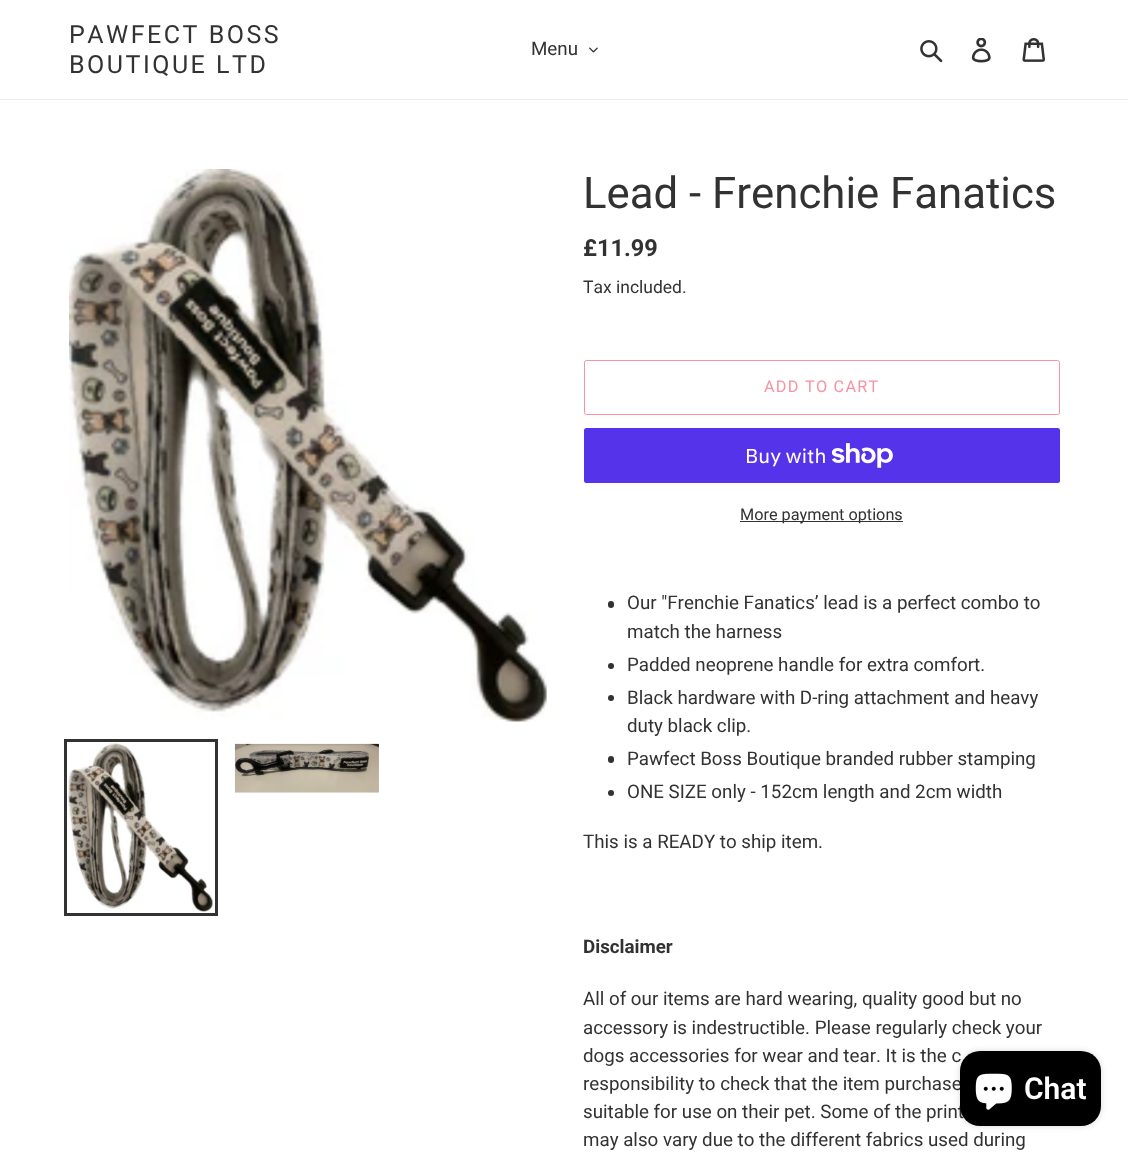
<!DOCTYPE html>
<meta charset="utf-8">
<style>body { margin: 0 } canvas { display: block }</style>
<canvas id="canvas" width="1128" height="1152"></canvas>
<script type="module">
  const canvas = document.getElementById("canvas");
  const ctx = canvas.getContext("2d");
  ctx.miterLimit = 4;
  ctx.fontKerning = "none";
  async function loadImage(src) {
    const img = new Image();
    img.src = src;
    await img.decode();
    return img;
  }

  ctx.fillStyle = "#ffffff";
  ctx.fillRect(0, 0, 1128, 1152);
  ctx.fillStyle = "#ebebeb";
  ctx.fillRect(0, 99, 1128, 1);
  ctx.letterSpacing = "2.5px";
  ctx.font = "25px Roboto";
  ctx.fillStyle = "#333232";
  ctx.fillText("PAWFECT BOSS", 69, 43);
  ctx.fillText("BOUTIQUE LTD", 69, 73);
  ctx.letterSpacing = "0px";
  ctx.font = "18.75px Roboto";
  ctx.fillText("Menu", 531, 55);
  ctx.drawImage(await loadImage("img1.png"), 589, 47, 9, 6);
  ctx.drawImage(await loadImage("img2.png"), 920, 40, 23, 23);
  ctx.drawImage(await loadImage("img3.png"), 971, 38, 20, 25);
  ctx.drawImage(await loadImage("img4.png"), 1022, 38, 23, 24);
  ctx.drawImage(await loadImage("img5.png"), 69, 169, 478, 553);
  ctx.strokeStyle = "#333232";
  ctx.lineWidth = 3;
  ctx.strokeRect(65.5, 740.5, 151, 174);
  ctx.drawImage(await loadImage("img6.png"), 68, 743, 145, 169);
  ctx.drawImage(await loadImage("img7.png"), 234, 743, 145, 50);
  ctx.font = "43.75px Roboto";
  ctx.fillText("Lead - Frenchie Fanatics", 583, 208);
  ctx.font = "bold 23.5px Roboto";
  ctx.fillText("£11.99", 583, 256);
  ctx.font = "17.5px Roboto";
  ctx.fillText("Tax included.", 583, 293);
  ctx.beginPath();
  ctx.roundRect(584.5, 360.5, 475, 54, 2);
  ctx.strokeStyle = "#f892a1";
  ctx.lineWidth = 1;
  ctx.stroke();
  ctx.letterSpacing = "1.25px";
  ctx.font = "16.25px Roboto";
  ctx.fillStyle = "#f892a1";
  ctx.fillText("ADD TO CART", 764, 392);
  ctx.fillStyle = "#5433eb";
  ctx.beginPath();
  ctx.roundRect(584, 428, 476, 55, 2.5);
  ctx.fill();
  ctx.letterSpacing = "0px";
  ctx.font = "20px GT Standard";
  ctx.fillStyle = "#ffffff";
  ctx.fillText("Buy with", 745, 463);
  ctx.drawImage(await loadImage("img8.png"), 831, 443, 62, 25);
  ctx.fillStyle = "#333232";
  ctx.fillRect(740, 521, 163, 1);
  ctx.font = "16.25px Roboto";
  ctx.fillText("More payment options", 740, 520);
  ctx.beginPath();
  ctx.roundRect(608, 601, 6, 7, 3);
  ctx.fill();
  ctx.font = "18.75px Roboto";
  ctx.fillText("Our \"Frenchie Fanatics’ lead is a perfect combo to", 627, 609);
  ctx.fillText("match the harness", 627, 638);
  ctx.beginPath();
  ctx.arc(611, 666, 3, 0, Math.PI * 2);
  ctx.fill();
  ctx.fillText("Padded neoprene handle for extra comfort.", 627, 671);
  ctx.beginPath();
  ctx.arc(611, 698, 3, 0, Math.PI * 2);
  ctx.fill();
  ctx.fillText("Black hardware with D-ring attachment and heavy", 627, 704);
  ctx.fillText("duty black clip.", 627, 732);
  ctx.beginPath();
  ctx.roundRect(608, 756, 6, 7, 3);
  ctx.fill();
  ctx.fillText("Pawfect Boss Boutique branded rubber stamping", 627, 765);
  ctx.beginPath();
  ctx.arc(611, 793, 3, 0, Math.PI * 2);
  ctx.fill();
  ctx.fillText("ONE SIZE only - 152cm length and 2cm width", 627, 798);
  ctx.fillText("This is a READY to ship item.", 583, 848);
  ctx.font = "bold 18.75px Roboto";
  ctx.fillText("Disclaimer", 583, 953);
  ctx.font = "18.75px Roboto";
  ctx.fillText("All of our items are hard wearing, quality good but no", 583, 1005);
  ctx.fillText("accessory is indestructible. Please regularly check your", 583, 1034);
  ctx.fillText("dogs accessories for wear and tear. It is the c", 583, 1062);
  ctx.fillText("responsibility to check that the item purchase", 583, 1090);
  ctx.fillText("suitable for use on their pet. Some of the print", 583, 1118);
  ctx.fillText("may also vary due to the different fabrics used during", 583, 1146);
  ctx.fillStyle = "rgba(0, 0, 0, 0.15)";
  ctx.filter = "blur(3px)";
  ctx.beginPath();
  ctx.roundRect(960, 1051, 141, 75, 20);
  ctx.fill();
  ctx.filter = "none";
  ctx.fillStyle = "#000000";
  ctx.beginPath();
  ctx.roundRect(960, 1051, 141, 75, 20);
  ctx.fill();
  ctx.drawImage(await loadImage("img9.png"), 975, 1073, 37, 37);
  ctx.font = "600 30px Roboto";
  ctx.fillStyle = "#ffffff";
  ctx.fillText("Chat", 1024, 1099);
</script>
